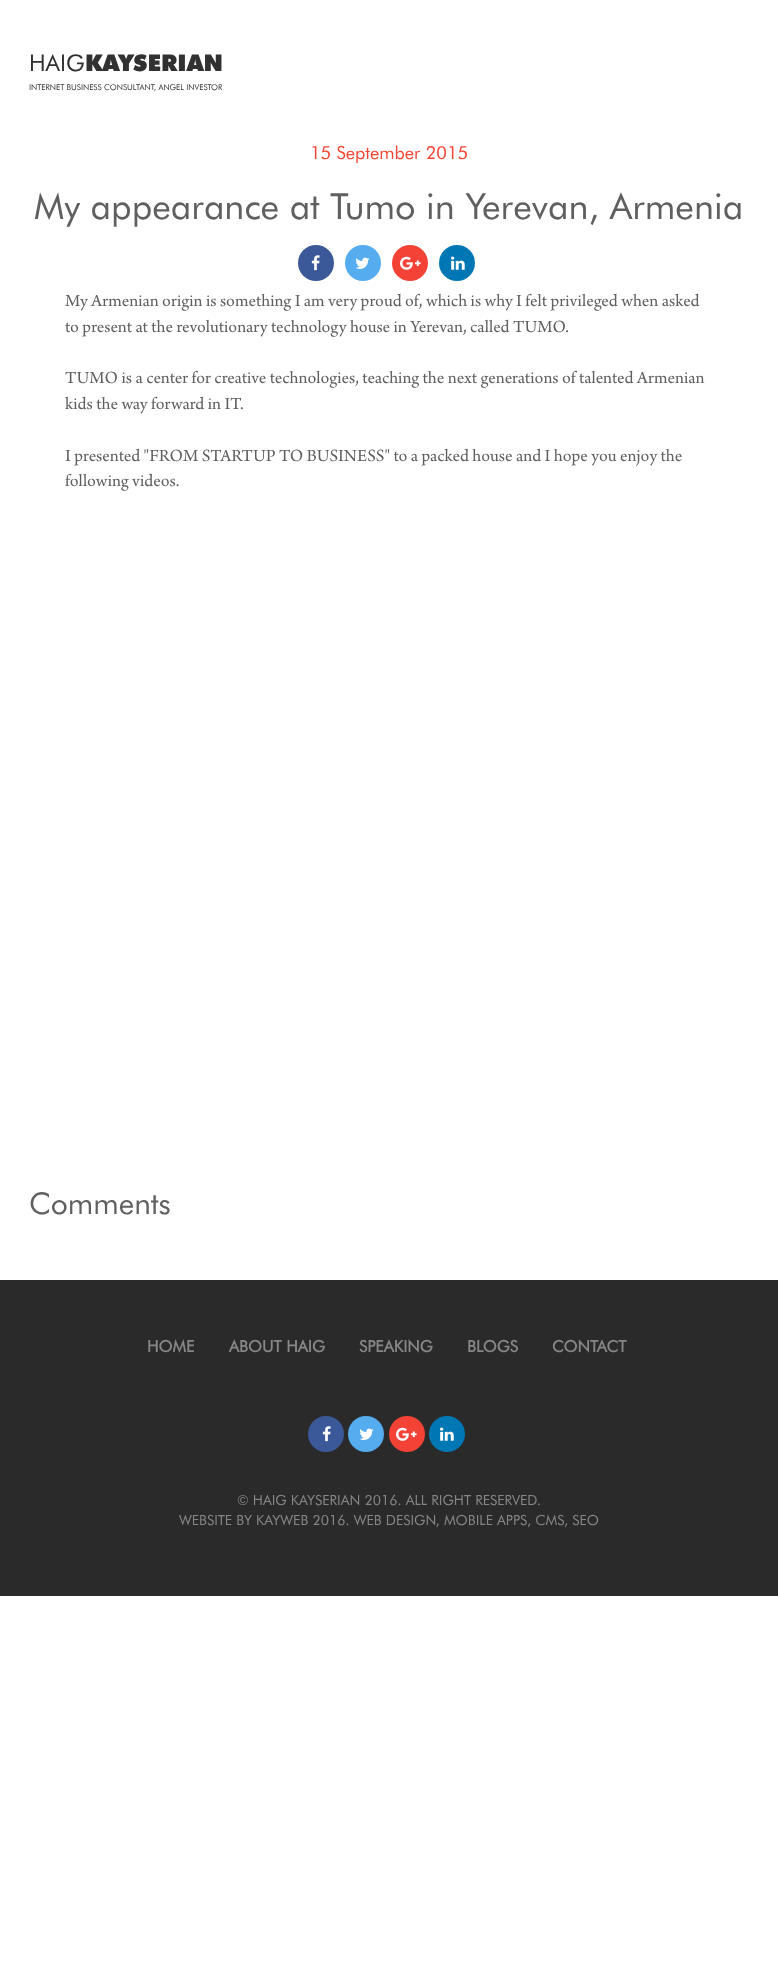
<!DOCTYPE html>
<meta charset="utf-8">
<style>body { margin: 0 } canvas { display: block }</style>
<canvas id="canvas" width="778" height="1977"></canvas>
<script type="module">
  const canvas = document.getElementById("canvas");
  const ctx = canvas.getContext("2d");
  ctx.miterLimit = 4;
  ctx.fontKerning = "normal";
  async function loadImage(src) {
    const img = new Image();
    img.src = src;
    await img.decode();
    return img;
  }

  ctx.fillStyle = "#ffffff";
  ctx.fillRect(0, 0, 778, 1977);
  ctx.font = "23px Futura";
  ctx.fillStyle = "#323131";
  ctx.fillText("HAIG", 29, 71);
  ctx.font = "800 23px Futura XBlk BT";
  ctx.fillText("KAYSERIAN", 85, 71);
  ctx.font = "8px Futura";
  ctx.fillText("INTERNET BUSINESS CONSULTANT, ANGEL INVESTOR", 29, 90);
  ctx.font = "18px Futura";
  ctx.fillStyle = "#f64432";
  ctx.fillText("15 September 2015", 310, 159);
  ctx.font = "36px Futura";
  ctx.fillStyle = "#5f5f5f";
  ctx.fillText("My appearance at Tumo in Yerevan, Armenia", 34, 219);
  ctx.fillStyle = "#3b5998";
  ctx.beginPath();
  ctx.arc(316, 263, 18, 0, Math.PI * 2);
  ctx.fill();
  ctx.drawImage(await loadImage("img1.png"), 311, 255, 9, 16);
  ctx.fillStyle = "#55acee";
  ctx.beginPath();
  ctx.arc(363, 263, 18, 0, Math.PI * 2);
  ctx.fill();
  ctx.drawImage(await loadImage("img2.png"), 355, 257, 15, 12);
  ctx.fillStyle = "#f44336";
  ctx.beginPath();
  ctx.arc(410, 263, 18, 0, Math.PI * 2);
  ctx.fill();
  ctx.drawImage(await loadImage("img3.png"), 400, 256, 21, 14);
  ctx.fillStyle = "#0077b5";
  ctx.beginPath();
  ctx.arc(457, 263, 18, 0, Math.PI * 2);
  ctx.fill();
  ctx.drawImage(await loadImage("img4.png"), 451, 256, 14, 14);
  ctx.font = "18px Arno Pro";
  ctx.fillStyle = "#5f5f5f";
  ctx.fillText("My Armenian origin is something I am very proud of, which is why I felt privileged when asked", 65, 306);
  ctx.fillText("to present at the revolutionary technology house in Yerevan, called TUMO.", 65, 332);
  ctx.fillText("TUMO is a center for creative technologies, teaching the next generations of talented Armenian", 65, 383);
  ctx.fillText("kids the way forward in IT.", 65, 409);
  ctx.fillText("I presented \"FROM STARTUP TO BUSINESS\" to a packed house and I hope you enjoy the", 65, 461);
  ctx.fillText("following videos.", 65, 486);
  ctx.font = "30px Futura";
  ctx.fillText("Comments", 29, 1214);
  ctx.fillStyle = "#2a2a2a";
  ctx.fillRect(0, 1280, 778, 316);
  ctx.font = "bold 16px Futura";
  ctx.fillStyle = "#868686";
  ctx.fillText("HOME", 147, 1352);
  ctx.fillText("ABOUT HAIG", 229, 1352);
  ctx.fillText("SPEAKING", 359, 1352);
  ctx.fillText("BLOGS", 467, 1352);
  ctx.fillText("CONTACT", 552, 1352);
  ctx.fillStyle = "#3b5998";
  ctx.beginPath();
  ctx.arc(326, 1434, 18, 0, Math.PI * 2);
  ctx.fill();
  ctx.drawImage(await loadImage("img1.png"), 322, 1426, 9, 16);
  ctx.fillStyle = "#55acee";
  ctx.beginPath();
  ctx.arc(366, 1434, 18, 0, Math.PI * 2);
  ctx.fill();
  ctx.drawImage(await loadImage("img2.png"), 359, 1428, 15, 12);
  ctx.fillStyle = "#f44336";
  ctx.beginPath();
  ctx.arc(407, 1434, 18, 0, Math.PI * 2);
  ctx.fill();
  ctx.drawImage(await loadImage("img3.png"), 396, 1427, 21, 14);
  ctx.fillStyle = "#0077b5";
  ctx.beginPath();
  ctx.arc(447, 1434, 18, 0, Math.PI * 2);
  ctx.fill();
  ctx.drawImage(await loadImage("img4.png"), 440, 1427, 14, 14);
  ctx.font = "14px Futura";
  ctx.fillStyle = "#868686";
  ctx.fillText("© HAIG KAYSERIAN 2016. ALL RIGHT RESERVED.", 237, 1505);
  ctx.fillText("WEBSITE BY KAYWEB 2016. WEB DESIGN, MOBILE APPS, CMS, SEO", 179, 1525);
</script>
